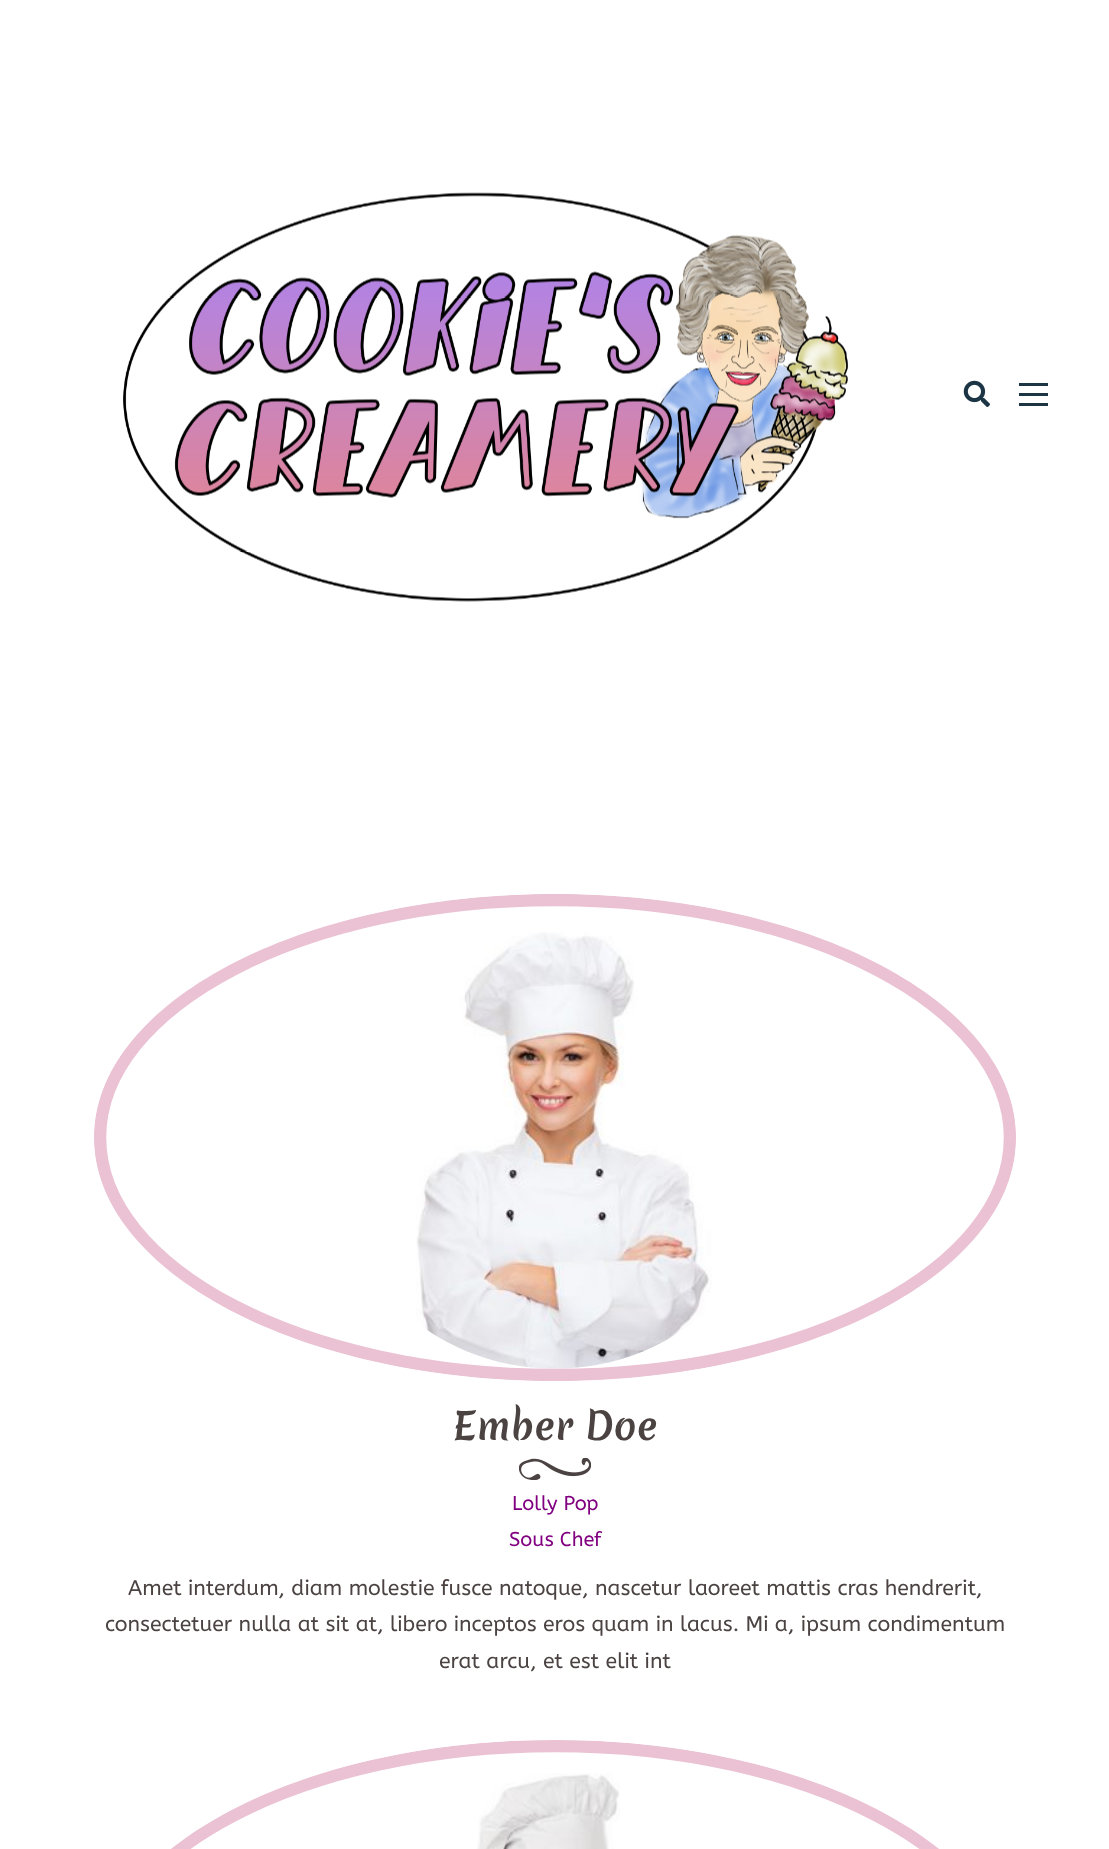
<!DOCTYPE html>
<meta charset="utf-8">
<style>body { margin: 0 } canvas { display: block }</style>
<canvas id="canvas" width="1109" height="1849"></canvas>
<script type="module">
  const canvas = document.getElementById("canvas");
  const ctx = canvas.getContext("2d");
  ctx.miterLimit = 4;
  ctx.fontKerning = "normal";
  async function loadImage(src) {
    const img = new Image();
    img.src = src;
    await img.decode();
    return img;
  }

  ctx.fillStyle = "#ffffff";
  ctx.fillRect(0, 0, 1109, 1849);
  ctx.drawImage(await loadImage("img1.png"), 123, 192, 726, 410);
  ctx.drawImage(await loadImage("img2.png"), 963, 380, 27, 27);
  ctx.fillStyle = "#1c3545";
  ctx.fillRect(1019, 393, 29, 3);
  ctx.fillRect(1019, 383, 29, 3);
  ctx.fillRect(1019, 403, 29, 3);
  ctx.drawImage(await loadImage("img3.png"), 416, 932, 296, 437);
  ctx.save();
  ctx.beginPath();
  ctx.roundRect(94, 894, 922, 487, 25);
  ctx.clip();
  ctx.beginPath();
  ctx.moveTo(555, 894);
  ctx.bezierCurveTo(809.5, 894, 1016, 1003, 1016, 1137.5);
  ctx.bezierCurveTo(1016, 1272, 809.5, 1381, 555, 1381);
  ctx.bezierCurveTo(300.5, 1381, 94, 1272, 94, 1137.5);
  ctx.bezierCurveTo(94, 1003, 300.5, 894, 555, 894);
  ctx.closePath();
  ctx.clip();
  ctx.beginPath();
  ctx.moveTo(555, 900);
  ctx.bezierCurveTo(806.5, 900, 1010, 1006.5, 1010, 1137.5);
  ctx.bezierCurveTo(1010, 1268.5, 806.5, 1375, 555, 1375);
  ctx.bezierCurveTo(303.5, 1375, 100, 1268.5, 100, 1137.5);
  ctx.bezierCurveTo(100, 1006.5, 303.5, 900, 555, 900);
  ctx.closePath();
  ctx.strokeStyle = "#ebc2d3";
  ctx.lineWidth = 12.5;
  ctx.stroke();
  ctx.restore();
  ctx.font = "37.5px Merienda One";
  ctx.fillStyle = "#4b4342";
  ctx.fillText("Ember Doe", 453, 1440);
  ctx.drawImage(await loadImage("img4.png"), 519, 1458, 72, 22);
  ctx.font = "20px ABeeZee";
  ctx.fillStyle = "#800080";
  ctx.fillText("Lolly Pop", 512, 1510);
  ctx.fillText("Sous Chef", 509, 1546);
  ctx.font = "21.25px ABeeZee";
  ctx.fillStyle = "#4b4342";
  ctx.fillText("Amet interdum, diam molestie fusce natoque, nascetur laoreet mattis cras hendrerit,", 128, 1595);
  ctx.fillText("consectetuer nulla at sit at, libero inceptos eros quam in lacus. Mi a, ipsum condimentum", 105, 1631);
  ctx.fillText("erat arcu, et est elit int", 439, 1668);
  ctx.drawImage(await loadImage("img5.png"), 477, 1773, 143, 76);
  ctx.save();
  ctx.beginPath();
  ctx.moveTo(555, 1740);
  ctx.bezierCurveTo(809.5, 1740, 1016, 1849, 1016, 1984);
  ctx.bezierCurveTo(1016, 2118.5, 809.5, 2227.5, 555, 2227.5);
  ctx.bezierCurveTo(300.5, 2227.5, 94, 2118.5, 94, 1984);
  ctx.bezierCurveTo(94, 1849, 300.5, 1740, 555, 1740);
  ctx.closePath();
  ctx.clip();
  ctx.beginPath();
  ctx.moveTo(555, 1746);
  ctx.bezierCurveTo(806.5, 1746, 1010, 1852.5, 1010, 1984);
  ctx.bezierCurveTo(1010, 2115, 806.5, 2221, 555, 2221);
  ctx.bezierCurveTo(303.5, 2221, 100, 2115, 100, 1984);
  ctx.bezierCurveTo(100, 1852.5, 303.5, 1746, 555, 1746);
  ctx.closePath();
  ctx.strokeStyle = "#ebc2d3";
  ctx.lineWidth = 12.5;
  ctx.stroke();
  ctx.restore();
</script>
